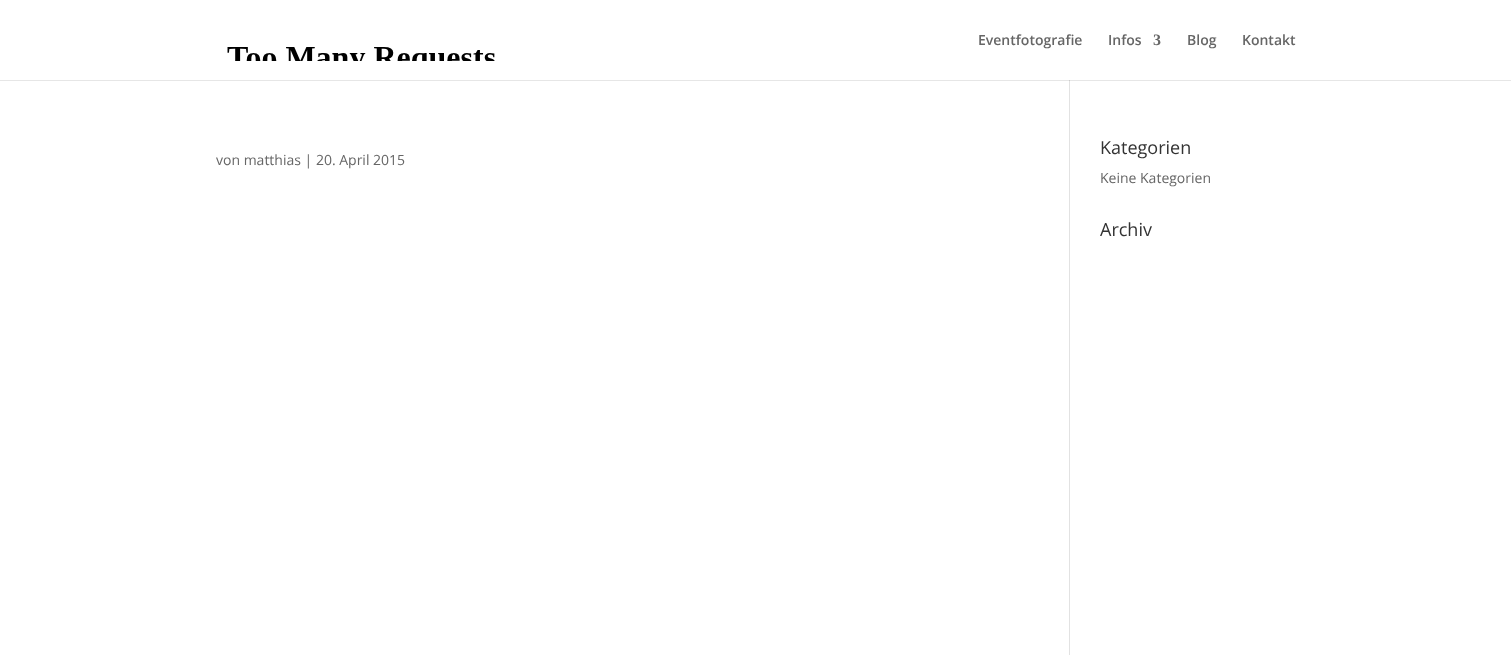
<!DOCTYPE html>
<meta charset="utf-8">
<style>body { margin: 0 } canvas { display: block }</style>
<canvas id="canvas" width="1511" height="655"></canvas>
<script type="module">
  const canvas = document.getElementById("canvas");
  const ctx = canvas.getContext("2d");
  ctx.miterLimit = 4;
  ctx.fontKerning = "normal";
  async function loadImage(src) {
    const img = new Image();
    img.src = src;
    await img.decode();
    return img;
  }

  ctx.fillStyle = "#ffffff";
  ctx.fillRect(0, 0, 1511, 655);
  ctx.fillStyle = "#e6e6e6";
  ctx.fillRect(0, 80, 1511, 1);
  ctx.font = "600 14px Open Sans";
  ctx.fillStyle = "#666666";
  ctx.fillText("Eventfotografie", 978, 45);
  ctx.fillText("Infos", 1108, 45);
  ctx.font = "bold 16px Liberation Serif";
  ctx.fillText("3", 1153, 45);
  ctx.font = "600 14px Open Sans";
  ctx.fillText("Blog", 1187, 45);
  ctx.fillText("Kontakt", 1242, 45);
  ctx.drawImage(await loadImage("img1.png"), 227, 47, 268, 14);
  ctx.fillStyle = "#e2e2e2";
  ctx.fillRect(1069, 80, 1, 575);
  ctx.fillStyle = "#cbcbcb";
  ctx.fillRect(1069, 80, 1, 1);
  ctx.font = "14px Open Sans";
  ctx.fillStyle = "#666666";
  ctx.fillText("von matthias | 20. April 2015", 216, 165);
  ctx.font = "18px Open Sans";
  ctx.fillStyle = "#333333";
  ctx.fillText("Kategorien", 1100, 154);
  ctx.font = "14px Open Sans";
  ctx.fillStyle = "#666666";
  ctx.fillText("Keine Kategorien", 1100, 183);
  ctx.font = "18px Open Sans";
  ctx.fillStyle = "#333333";
  ctx.fillText("Archiv", 1100, 236);
</script>
